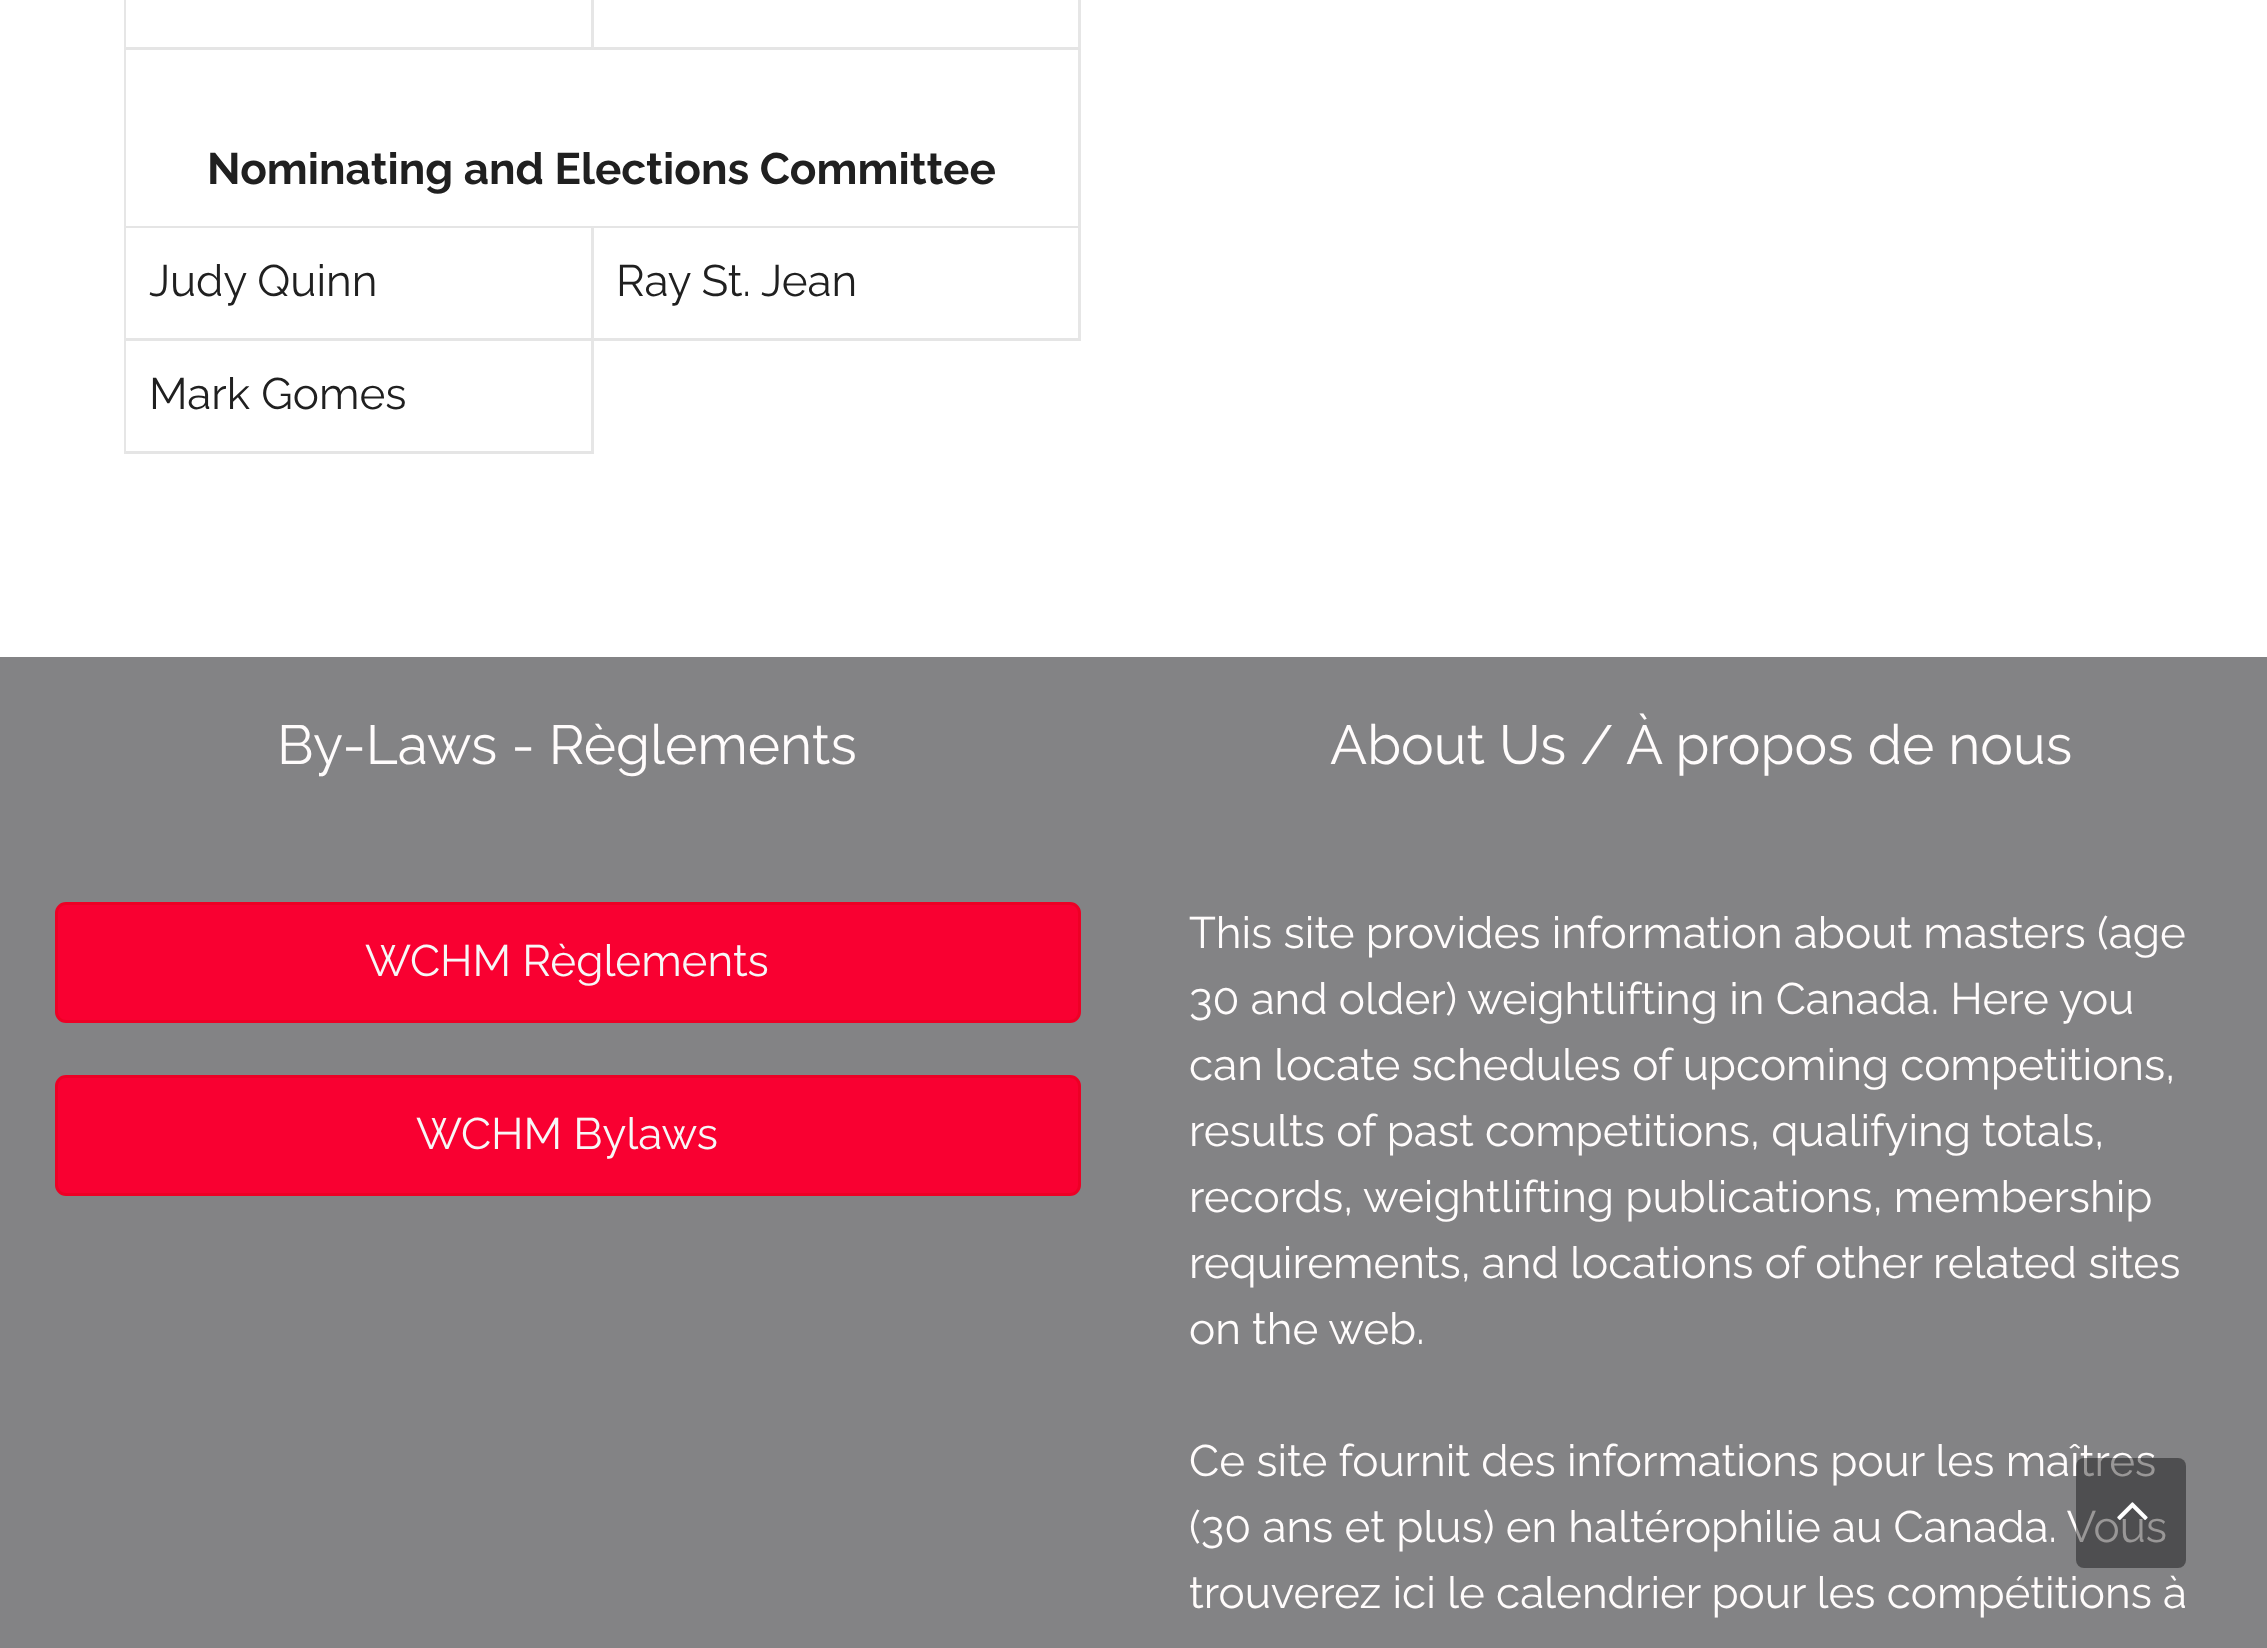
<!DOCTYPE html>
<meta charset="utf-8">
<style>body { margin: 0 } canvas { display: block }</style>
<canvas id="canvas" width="2267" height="1648"></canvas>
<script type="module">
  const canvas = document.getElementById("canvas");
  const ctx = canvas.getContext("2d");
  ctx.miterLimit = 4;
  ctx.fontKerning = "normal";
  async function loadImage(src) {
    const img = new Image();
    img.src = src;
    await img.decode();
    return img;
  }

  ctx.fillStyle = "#ffffff";
  ctx.fillRect(0, 0, 2267, 1648);
  ctx.fillStyle = "#e6e6e6";
  ctx.beginPath();
  ctx.moveTo(124, 454);
  ctx.lineTo(124, -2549);
  ctx.lineTo(126, -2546);
  ctx.lineTo(126, 454);
  ctx.closePath();
  ctx.fill();
  ctx.beginPath();
  ctx.moveTo(594, -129);
  ctx.lineTo(594, 50);
  ctx.lineTo(591, 47);
  ctx.lineTo(591, -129);
  ctx.closePath();
  ctx.fill();
  ctx.fillStyle = "rgba(0, 0, 0, 0.1)";
  ctx.beginPath();
  ctx.moveTo(594, 50);
  ctx.lineTo(126, 50);
  ctx.lineTo(126, 47);
  ctx.lineTo(591, 47);
  ctx.closePath();
  ctx.fill();
  ctx.fillStyle = "#e6e6e6";
  ctx.beginPath();
  ctx.moveTo(1081, -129);
  ctx.lineTo(1081, 50);
  ctx.lineTo(1078, 47);
  ctx.lineTo(1078, -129);
  ctx.closePath();
  ctx.fill();
  ctx.fillStyle = "rgba(0, 0, 0, 0.1)";
  ctx.beginPath();
  ctx.moveTo(1081, 50);
  ctx.lineTo(594, 50);
  ctx.lineTo(594, 47);
  ctx.lineTo(1078, 47);
  ctx.closePath();
  ctx.fill();
  ctx.fillStyle = "#e6e6e6";
  ctx.beginPath();
  ctx.moveTo(1081, 50);
  ctx.lineTo(1081, 228);
  ctx.lineTo(1078, 226);
  ctx.lineTo(1078, 50);
  ctx.closePath();
  ctx.fill();
  ctx.fillStyle = "rgba(0, 0, 0, 0.1)";
  ctx.beginPath();
  ctx.moveTo(1081, 228);
  ctx.lineTo(126, 228);
  ctx.lineTo(126, 226);
  ctx.lineTo(1078, 226);
  ctx.closePath();
  ctx.fill();
  ctx.font = "bold 44px Raleway";
  ctx.fillStyle = "#202020";
  ctx.fillText("Nominating and Elections Committee", 207, 184);
  ctx.fillStyle = "#e6e6e6";
  ctx.beginPath();
  ctx.moveTo(594, 228);
  ctx.lineTo(594, 341);
  ctx.lineTo(591, 338);
  ctx.lineTo(591, 228);
  ctx.closePath();
  ctx.fill();
  ctx.fillStyle = "rgba(0, 0, 0, 0.1)";
  ctx.beginPath();
  ctx.moveTo(594, 341);
  ctx.lineTo(126, 341);
  ctx.lineTo(126, 338);
  ctx.lineTo(591, 338);
  ctx.closePath();
  ctx.fill();
  ctx.font = "44px Raleway";
  ctx.fillStyle = "#202020";
  ctx.fillText("Judy Quinn", 149, 296);
  ctx.fillStyle = "#e6e6e6";
  ctx.beginPath();
  ctx.moveTo(1081, 228);
  ctx.lineTo(1081, 341);
  ctx.lineTo(1078, 338);
  ctx.lineTo(1078, 228);
  ctx.closePath();
  ctx.fill();
  ctx.fillStyle = "rgba(0, 0, 0, 0.1)";
  ctx.beginPath();
  ctx.moveTo(1081, 341);
  ctx.lineTo(594, 341);
  ctx.lineTo(594, 338);
  ctx.lineTo(1078, 338);
  ctx.closePath();
  ctx.fill();
  ctx.fillStyle = "#202020";
  ctx.fillText("Ray St. Jean", 616, 296);
  ctx.fillStyle = "#e6e6e6";
  ctx.beginPath();
  ctx.moveTo(594, 341);
  ctx.lineTo(594, 454);
  ctx.lineTo(591, 451);
  ctx.lineTo(591, 341);
  ctx.closePath();
  ctx.fill();
  ctx.fillStyle = "rgba(0, 0, 0, 0.1)";
  ctx.beginPath();
  ctx.moveTo(594, 454);
  ctx.lineTo(126, 454);
  ctx.lineTo(126, 451);
  ctx.lineTo(591, 451);
  ctx.closePath();
  ctx.fill();
  ctx.fillStyle = "#202020";
  ctx.fillText("Mark Gomes", 149, 409);
  ctx.fillStyle = "#838385";
  ctx.fillRect(0, 657, 2267, 991);
  ctx.font = "55px Raleway";
  ctx.fillStyle = "#fffcfc";
  ctx.fillText("By-Laws - Règlements", 277, 764);
  ctx.fillStyle = "#f90031";
  ctx.beginPath();
  ctx.roundRect(56.5, 903.5, 1023, 118, 9.5);
  ctx.fill();
  ctx.strokeStyle = "#ed0025";
  ctx.lineWidth = 3;
  ctx.stroke();
  ctx.font = "44px Raleway";
  ctx.fillStyle = "#f7f7f7";
  ctx.fillText("WCHM Règlements", 365, 976);
  ctx.fillStyle = "#f90031";
  ctx.beginPath();
  ctx.roundRect(56.5, 1076.5, 1023, 118, 9.5);
  ctx.fill();
  ctx.stroke();
  ctx.fillStyle = "#f7f7f7";
  ctx.fillText("WCHM Bylaws", 416, 1149);
  ctx.font = "55px Raleway";
  ctx.fillStyle = "#fffcfc";
  ctx.fillText("About Us / À propos de nous", 1330, 764);
  ctx.font = "44px Raleway";
  ctx.fillText("This site provides information about masters (age", 1189, 948);
  ctx.fillText("30 and older) weightlifting in Canada. Here you", 1189, 1014);
  ctx.fillText("can locate schedules of upcoming competitions,", 1189, 1080);
  ctx.fillText("results of past competitions, qualifying totals,", 1189, 1146);
  ctx.fillText("records, weightlifting publications, membership", 1189, 1212);
  ctx.fillText("requirements, and locations of other related sites", 1189, 1278);
  ctx.fillText("on the web.", 1189, 1344);
  ctx.fillText("Ce site fournit des informations pour les maîtres", 1189, 1476);
  ctx.fillText("(30 ans et plus) en haltérophilie au Canada. Vous", 1189, 1542);
  ctx.fillText("trouverez ici le calendrier pour les compétitions à", 1189, 1608);
  ctx.fillStyle = "rgba(0, 0, 0, 0.4)";
  ctx.beginPath();
  ctx.roundRect(2076, 1458, 110, 110, 8);
  ctx.fill();
  ctx.drawImage(await loadImage("img1.png"), 2117, 1502, 31, 18);
</script>
